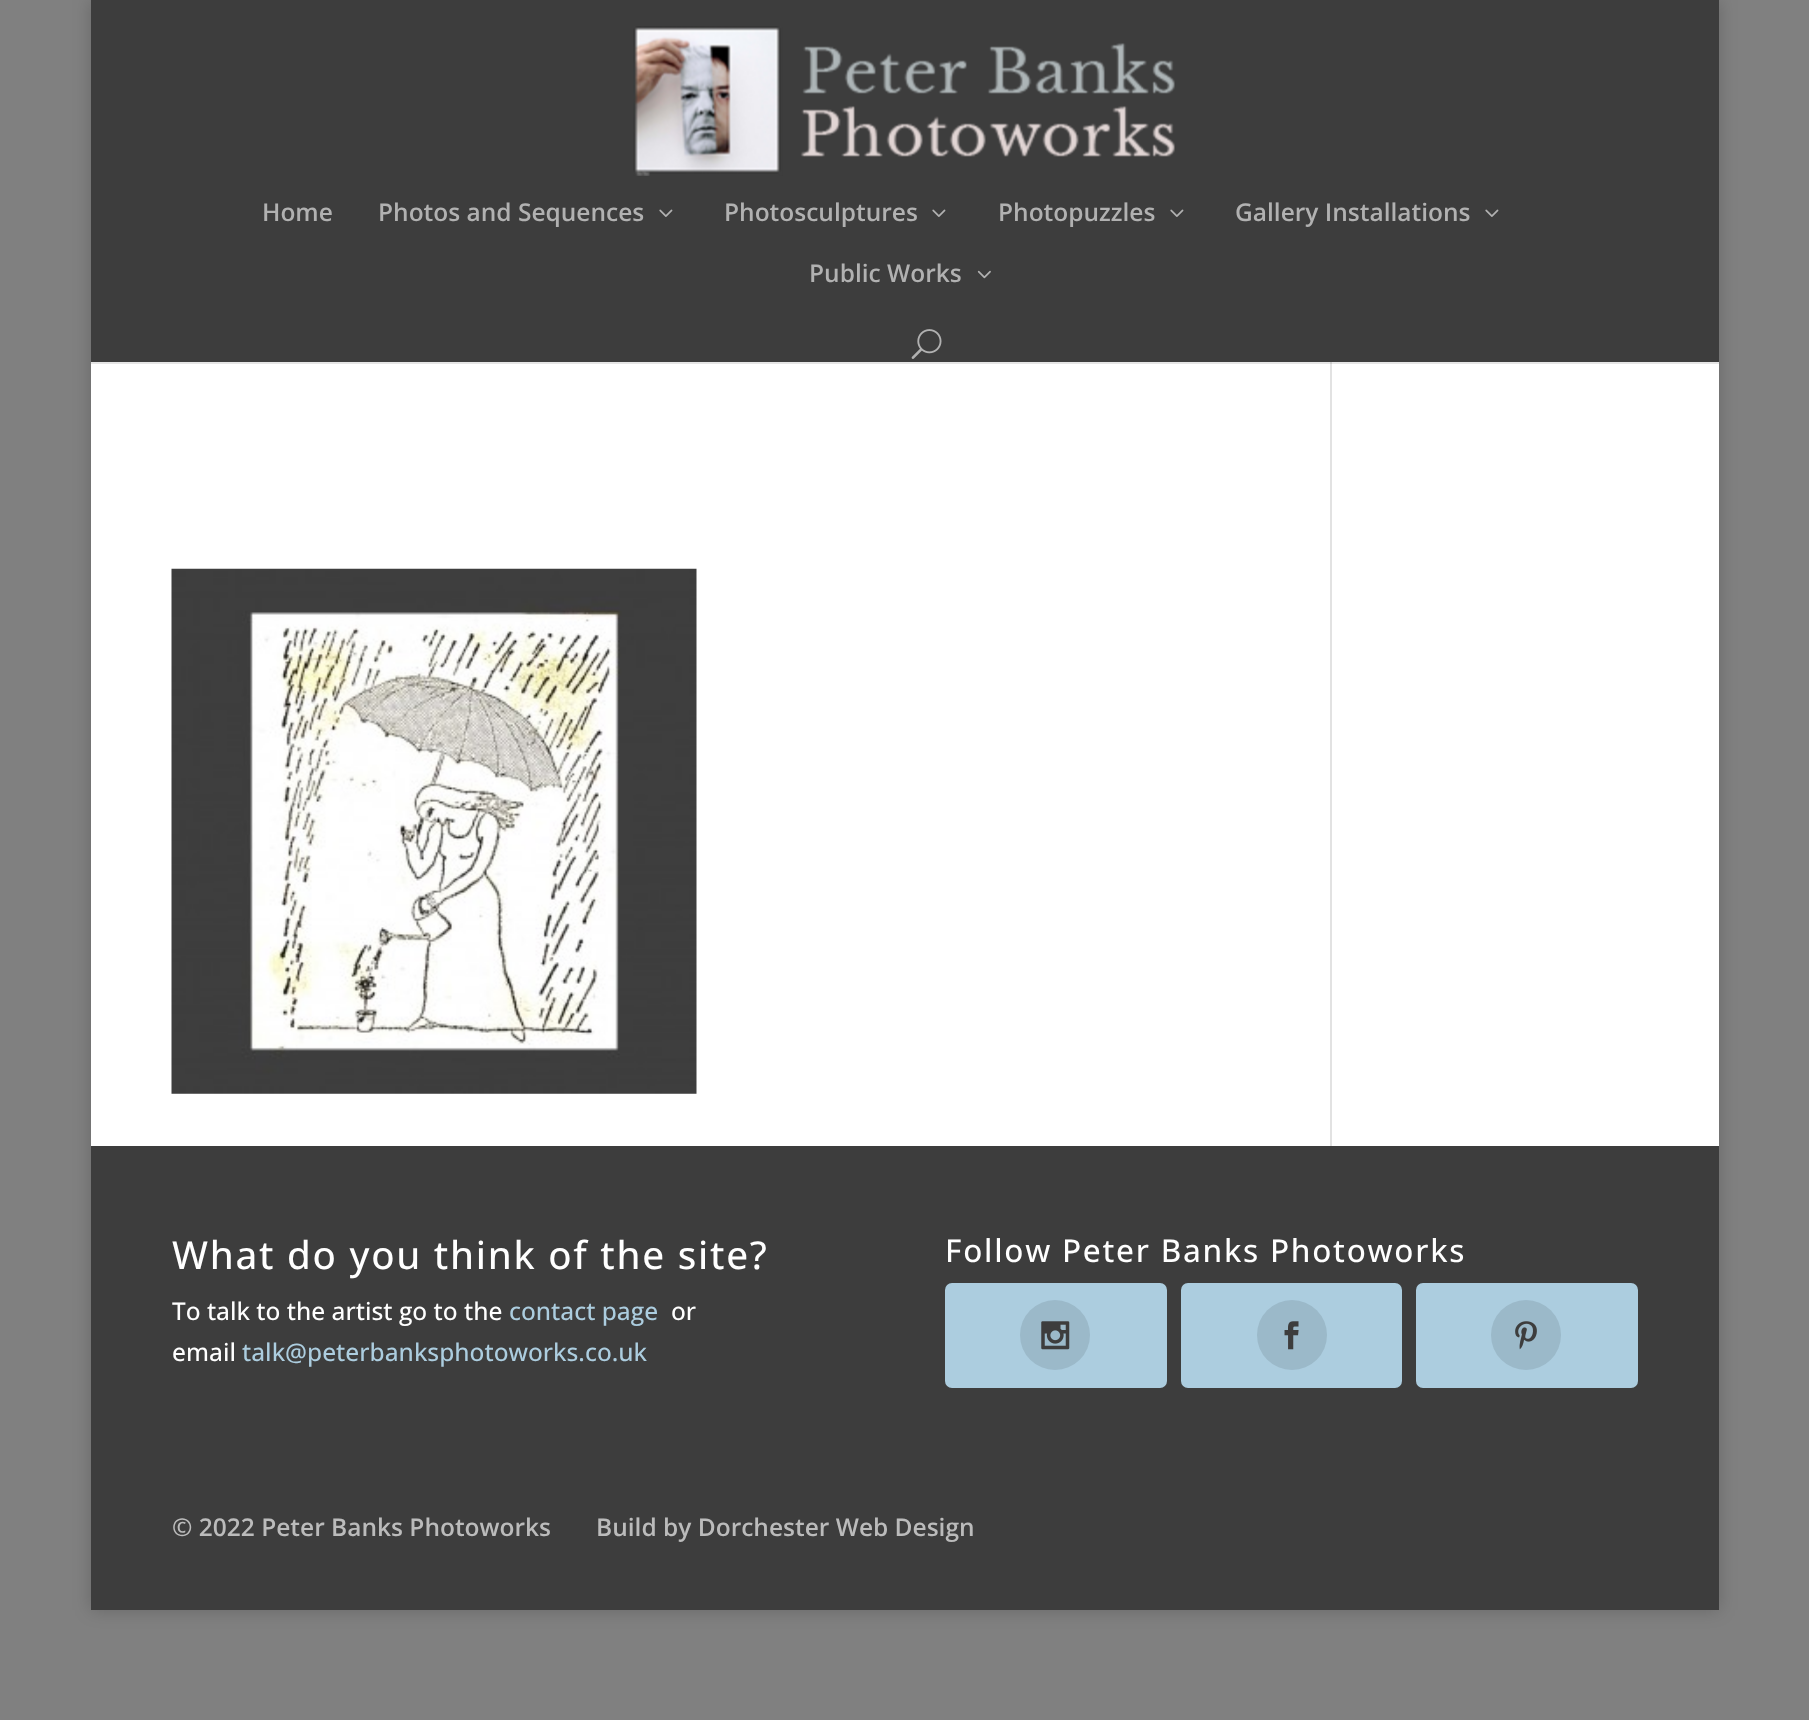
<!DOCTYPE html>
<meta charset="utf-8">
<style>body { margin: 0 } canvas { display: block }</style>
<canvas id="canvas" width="1809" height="1720"></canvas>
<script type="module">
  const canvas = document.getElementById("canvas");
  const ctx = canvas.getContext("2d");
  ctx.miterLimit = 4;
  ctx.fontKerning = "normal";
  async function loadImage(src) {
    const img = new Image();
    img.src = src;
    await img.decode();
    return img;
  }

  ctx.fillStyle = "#808080";
  ctx.fillRect(0, 0, 1809, 1720);
  ctx.fillStyle = "rgba(0, 0, 0, 0.2)";
  ctx.filter = "blur(9px)";
  ctx.beginPath();
  ctx.rect(91, 0, 1628, 1610);
  ctx.fill();
  ctx.filter = "none";
  ctx.fillStyle = "#ffffff";
  ctx.fillRect(91, 362, 1628, 784);
  ctx.fillStyle = "#e2e2e2";
  ctx.fillRect(1330, 362, 2, 784);
  ctx.fillStyle = "rgba(0, 0, 0, 0.1)";
  ctx.beginPath();
  ctx.moveTo(91, 362);
  ctx.lineTo(91, 364);
  ctx.lineTo(1719, 364);
  ctx.lineTo(1719, 2);
  ctx.lineTo(1718, 2);
  ctx.lineTo(1718, 362);
  ctx.closePath();
  ctx.fill();
  ctx.fillStyle = "#3d3d3d";
  ctx.fillRect(91, 0, 1628, 362);
  ctx.drawImage(await loadImage("img1.png"), 633, 26, 542, 150);
  ctx.font = "600 24.5px Open Sans";
  ctx.fillStyle = "#b1b1b1";
  ctx.fillText("Home", 262, 221);
  ctx.fillText("Photos and Sequences", 378, 221);
  ctx.drawImage(await loadImage("img2.png"), 659, 209, 14, 8);
  ctx.fillText("Photosculptures", 724, 221);
  ctx.drawImage(await loadImage("img2.png"), 932, 209, 14, 8);
  ctx.fillText("Photopuzzles", 998, 221);
  ctx.drawImage(await loadImage("img2.png"), 1170, 209, 14, 8);
  ctx.fillText("Gallery Installations", 1235, 221);
  ctx.drawImage(await loadImage("img2.png"), 1485, 209, 14, 8);
  ctx.fillText("Public Works", 809, 282);
  ctx.drawImage(await loadImage("img3.png"), 977, 270, 14, 9);
  ctx.drawImage(await loadImage("img4.png"), 911, 329, 31, 30);
  ctx.drawImage(await loadImage("img5.png"), 171, 568, 526, 526);
  ctx.fillStyle = "#3d3d3d";
  ctx.fillRect(91, 1146, 1628, 464);
  ctx.letterSpacing = "1.75px";
  ctx.font = "500 38.5px Open Sans";
  ctx.fillStyle = "#ffffff";
  ctx.fillText("What do you think of the site?", 172, 1269);
  ctx.letterSpacing = "0px";
  ctx.font = "500 24.5px Open Sans";
  ctx.fillText("To talk to the artist go to the", 172, 1320);
  ctx.fillStyle = "#accddf";
  ctx.fillText("contact page", 509, 1320);
  ctx.fillStyle = "#ffffff";
  ctx.fillText("or", 671, 1320);
  ctx.fillText("email", 172, 1361);
  ctx.fillStyle = "#accddf";
  ctx.fillText("talk@peterbanksphotoworks.co.uk", 242, 1361);
  ctx.letterSpacing = "1.75px";
  ctx.font = "500 31.5px Open Sans";
  ctx.fillStyle = "#ffffff";
  ctx.fillText("Follow Peter Banks Photoworks", 945, 1262);
  ctx.fillStyle = "#accddf";
  ctx.beginPath();
  ctx.roundRect(945, 1283, 222, 105, 7);
  ctx.fill();
  ctx.fillStyle = "#9bb9c9";
  ctx.beginPath();
  ctx.arc(1055, 1335, 35, 0, Math.PI * 2);
  ctx.fill();
  ctx.drawImage(await loadImage("img6.png"), 1041, 1321, 29, 29);
  ctx.fillStyle = "#accddf";
  ctx.beginPath();
  ctx.roundRect(1181, 1283, 221, 105, 7);
  ctx.fill();
  ctx.fillStyle = "#9bb9c9";
  ctx.beginPath();
  ctx.arc(1292, 1335, 35, 0, Math.PI * 2);
  ctx.fill();
  ctx.drawImage(await loadImage("img7.png"), 1284, 1321, 15, 29);
  ctx.fillStyle = "#accddf";
  ctx.beginPath();
  ctx.roundRect(1416, 1283, 222, 105, 7);
  ctx.fill();
  ctx.fillStyle = "#9bb9c9";
  ctx.beginPath();
  ctx.arc(1526, 1335, 35, 0, Math.PI * 2);
  ctx.fill();
  ctx.drawImage(await loadImage("img8.png"), 1515, 1321, 22, 29);
  ctx.letterSpacing = "0px";
  ctx.font = "600 24.5px Open Sans";
  ctx.fillStyle = "#bbbbbb";
  ctx.fillText("© 2022 Peter Banks Photoworks", 172, 1536);
  ctx.fillText("Build by Dorchester Web Design", 596, 1536);
</script>
